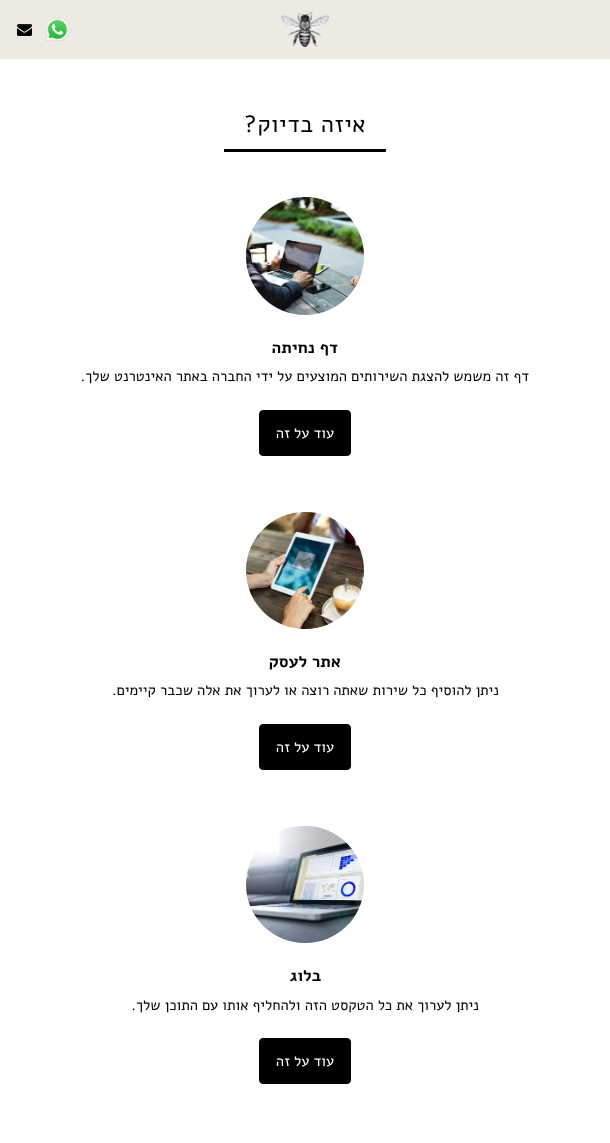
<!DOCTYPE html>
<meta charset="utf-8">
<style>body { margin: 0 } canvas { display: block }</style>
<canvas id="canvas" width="610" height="1143"></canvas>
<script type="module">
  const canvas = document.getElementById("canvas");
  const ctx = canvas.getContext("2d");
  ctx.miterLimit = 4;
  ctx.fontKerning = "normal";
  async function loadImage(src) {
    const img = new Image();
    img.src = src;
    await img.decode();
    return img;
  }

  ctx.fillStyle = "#ffffff";
  ctx.fillRect(0, 0, 610, 1143);
  ctx.fillStyle = "#edeae3";
  ctx.fillRect(0, 0, 610, 59);
  ctx.drawImage(await loadImage("img1.png"), 281, 12, 48, 35);
  ctx.drawImage(await loadImage("img2.png"), 46, 18, 23, 23);
  ctx.drawImage(await loadImage("img3.png"), 17, 24, 15, 12);
  ctx.fillStyle = "#000000";
  ctx.fillRect(224, 149, 162, 3);
  ctx.letterSpacing = "0.5px";
  ctx.direction = "rtl";
  ctx.font = "23.5px Alef";
  ctx.fillText("איזה בדיוק?", 366, 132);
  ctx.drawImage(await loadImage("img4.png"), 246, 197, 118, 118);
  ctx.letterSpacing = "0px";
  ctx.font = "bold 16.5px Alef";
  ctx.fillText("דף נחיתה", 338, 353);
  ctx.font = "14.7px Alef";
  ctx.fillText("דף זה משמש להצגת השירותים המוצעים על ידי החברה באתר האינטרנט שלך.", 529, 381);
  ctx.beginPath();
  ctx.roundRect(259.5, 410.5, 91, 45, 3.5);
  ctx.fill();
  ctx.strokeStyle = "#000000";
  ctx.stroke();
  ctx.fillStyle = "#ffffff";
  ctx.fillText("עוד על זה", 334, 438);
  ctx.drawImage(await loadImage("img5.png"), 245, 512, 119, 117);
  ctx.font = "bold 16.5px Alef";
  ctx.fillStyle = "#000000";
  ctx.fillText("אתר לעסק", 341, 667);
  ctx.font = "14.7px Alef";
  ctx.fillText("ניתן להוסיף כל שירות שאתה רוצה או לערוך את אלה שכבר קיימים.", 499, 695);
  ctx.beginPath();
  ctx.roundRect(259.5, 724.5, 91, 45, 3.5);
  ctx.fill();
  ctx.stroke();
  ctx.fillStyle = "#ffffff";
  ctx.fillText("עוד על זה", 334, 752);
  ctx.drawImage(await loadImage("img6.png"), 245, 826, 119, 117);
  ctx.font = "bold 16.5px Alef";
  ctx.fillStyle = "#000000";
  ctx.fillText("בלוג", 321, 981);
  ctx.font = "14.7px Alef";
  ctx.fillText("ניתן לערוך את כל הטקסט הזה ולהחליף אותו עם התוכן שלך.", 479, 1010);
  ctx.beginPath();
  ctx.roundRect(259.5, 1038.5, 91, 45, 3.5);
  ctx.fill();
  ctx.stroke();
  ctx.fillStyle = "#ffffff";
  ctx.fillText("עוד על זה", 334, 1066);
</script>
